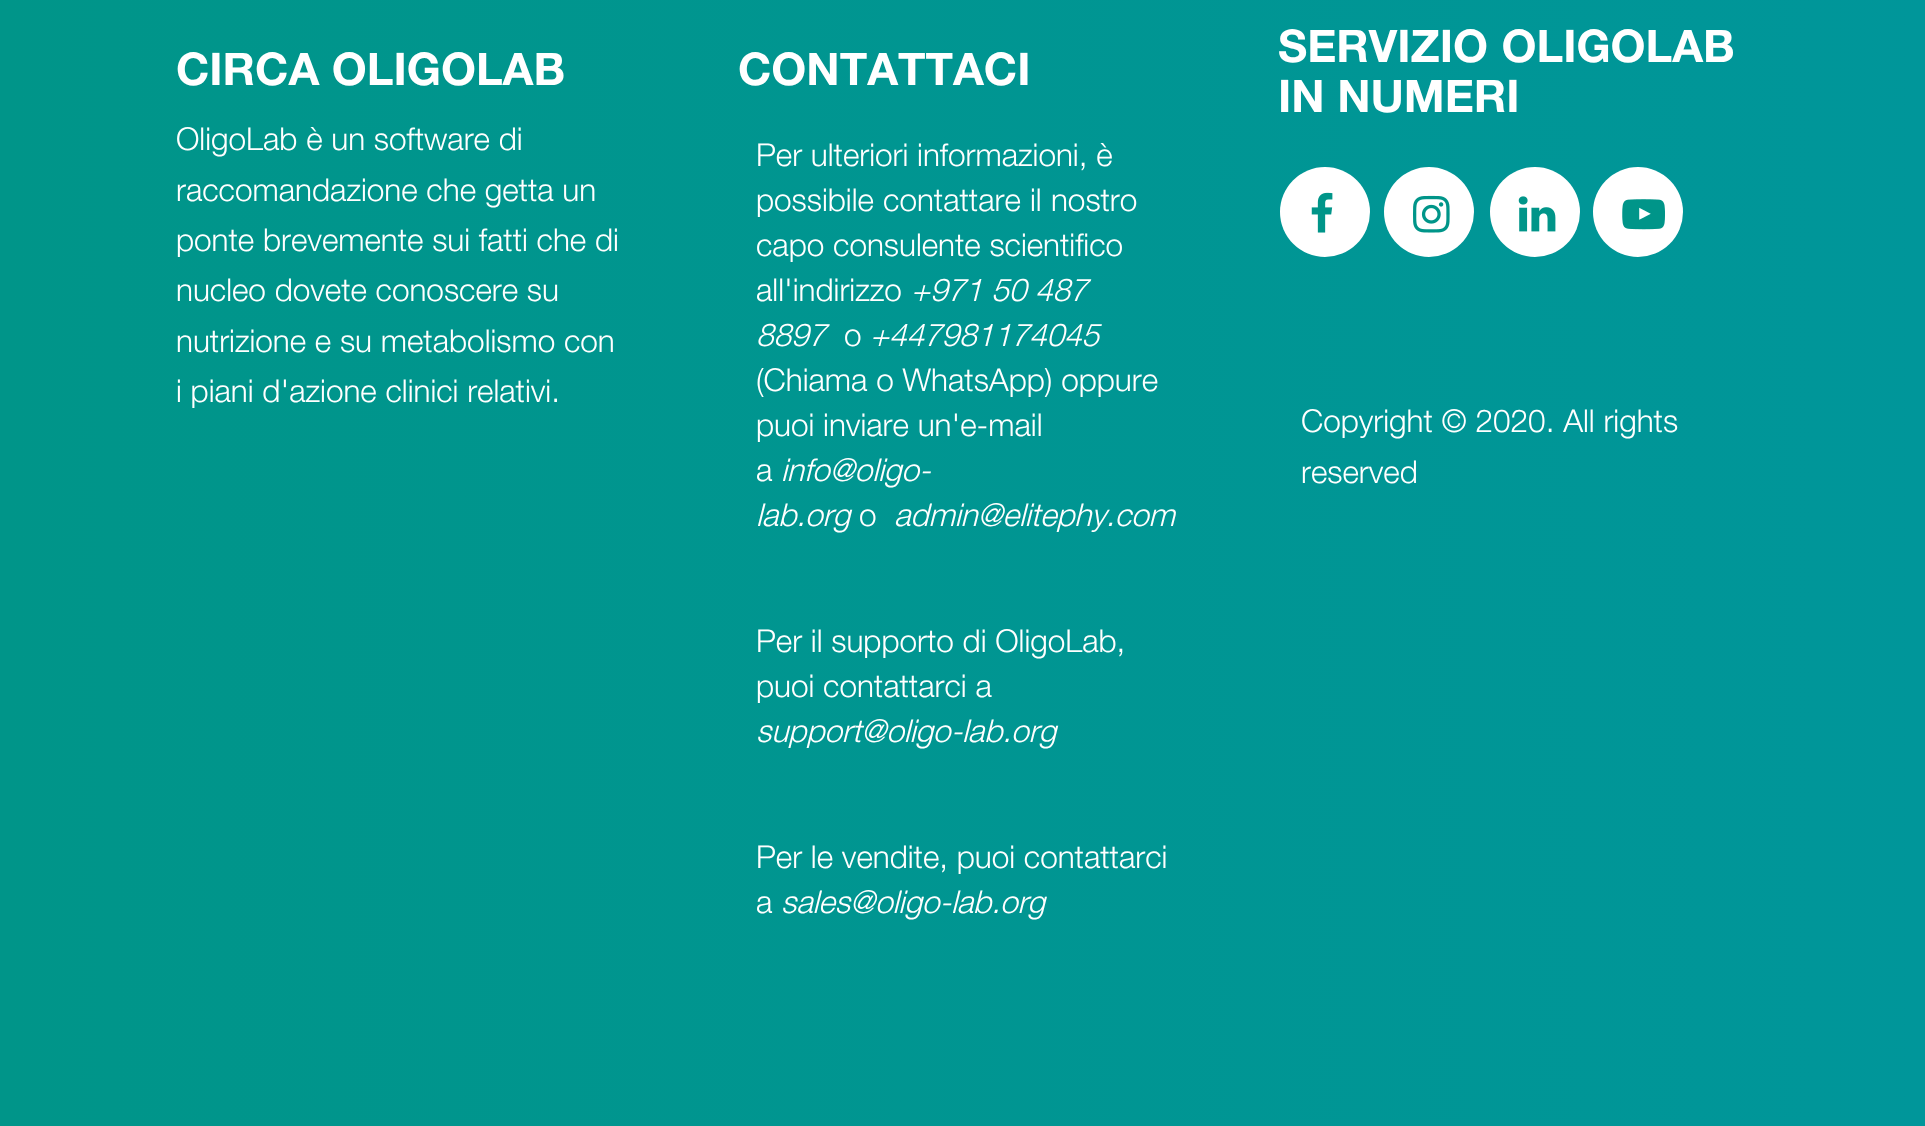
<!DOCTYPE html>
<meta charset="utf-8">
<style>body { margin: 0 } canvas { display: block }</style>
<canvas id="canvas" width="1925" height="1126"></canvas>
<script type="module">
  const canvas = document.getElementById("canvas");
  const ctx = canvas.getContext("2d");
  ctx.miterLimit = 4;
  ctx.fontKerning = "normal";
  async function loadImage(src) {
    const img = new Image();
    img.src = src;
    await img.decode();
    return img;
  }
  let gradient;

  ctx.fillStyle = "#ffffff";
  ctx.fillRect(0, 0, 1925, 1126);
  gradient = ctx.createLinearGradient(0, 529, 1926, 529);
  gradient.addColorStop(0, "#009589");
  gradient.addColorStop(1, "#00969a");
  ctx.fillStyle = gradient;
  ctx.fillRect(0, 0, 1925, 1126);
  ctx.font = "bold 45px Helvetica Neue";
  ctx.fillStyle = "#ffffff";
  ctx.fillText("CIRCA OLIGOLAB", 176, 85);
  ctx.font = "300 31.5px Helvetica Neue";
  ctx.fillText("OligoLab è un software di", 176, 150);
  ctx.fillText("raccomandazione che getta un", 176, 201);
  ctx.fillText("ponte brevemente sui fatti che di", 176, 251);
  ctx.fillText("nucleo dovete conoscere su", 176, 301);
  ctx.fillText("nutrizione e su metabolismo con", 176, 352);
  ctx.fillText("i piani d'azione clinici relativi.", 176, 402);
  ctx.font = "bold 45px Helvetica Neue";
  ctx.fillText("CONTATTACI", 738, 85);
  ctx.font = "300 31.5px Helvetica Neue";
  ctx.fillText("Per ulteriori informazioni, è", 756, 166);
  ctx.wordSpacing = "0.5px";
  ctx.fillText("possibile contattare il nostro", 756, 211);
  ctx.wordSpacing = "0px";
  ctx.fillText("capo consulente scientifico", 756, 256);
  ctx.fillText("all'indirizzo", 756, 301);
  ctx.font = "italic 300 31.5px Helvetica Neue";
  ctx.fillText("+971 50 487", 911, 301);
  ctx.fillText("8897", 756, 346);
  ctx.font = "300 31.5px Helvetica Neue";
  ctx.fillText("o", 844, 346);
  ctx.font = "italic 300 31.5px Helvetica Neue";
  ctx.fillText("+447981174045", 870, 346);
  ctx.font = "300 31.5px Helvetica Neue";
  ctx.fillText("(Chiama o WhatsApp) oppure", 756, 391);
  ctx.fillText("puoi inviare un'e-mail", 756, 436);
  ctx.fillText("a", 756, 481);
  ctx.font = "italic 300 31.5px Helvetica Neue";
  ctx.fillText("info@oligo-", 781, 481);
  ctx.fillText("lab.org", 756, 526);
  ctx.font = "300 31.5px Helvetica Neue";
  ctx.fillText("o", 859, 526);
  ctx.font = "italic 300 31.5px Helvetica Neue";
  ctx.fillText("admin@elitephy.com", 894, 526);
  ctx.font = "300 31.5px Helvetica Neue";
  ctx.fillText("Per il supporto di OligoLab,", 756, 652);
  ctx.fillText("puoi contattarci a", 756, 697);
  ctx.font = "italic 300 31.5px Helvetica Neue";
  ctx.fillText("support@oligo-lab.org", 756, 742);
  ctx.font = "300 31.5px Helvetica Neue";
  ctx.fillText("Per le vendite, puoi contattarci", 756, 868);
  ctx.fillText("a", 756, 913);
  ctx.font = "italic 300 31.5px Helvetica Neue";
  ctx.fillText("sales@oligo-lab.org", 781, 913);
  ctx.wordSpacing = "1px";
  ctx.font = "bold 45px Helvetica Neue";
  ctx.fillText("SERVIZIO OLIGOLAB", 1278, 62);
  ctx.wordSpacing = "0px";
  ctx.fillText("IN NUMERI", 1278, 112);
  ctx.beginPath();
  ctx.arc(1325, 212, 45, 0, Math.PI * 2);
  ctx.fill();
  ctx.drawImage(await loadImage("img1.png"), 1311, 192, 22, 41);
  ctx.beginPath();
  ctx.arc(1429, 212, 45, 0, Math.PI * 2);
  ctx.fill();
  ctx.drawImage(await loadImage("img2.png"), 1413, 195, 37, 38);
  ctx.beginPath();
  ctx.arc(1535, 212, 45, 0, Math.PI * 2);
  ctx.fill();
  ctx.drawImage(await loadImage("img3.png"), 1518, 196, 38, 36);
  ctx.beginPath();
  ctx.arc(1638, 212, 45, 0, Math.PI * 2);
  ctx.fill();
  ctx.drawImage(await loadImage("img4.png"), 1622, 199, 43, 31);
  ctx.font = "300 31.5px Helvetica Neue";
  ctx.fillText("Copyright © 2020. All rights", 1301, 432);
  ctx.fillText("reserved", 1301, 483);
</script>
